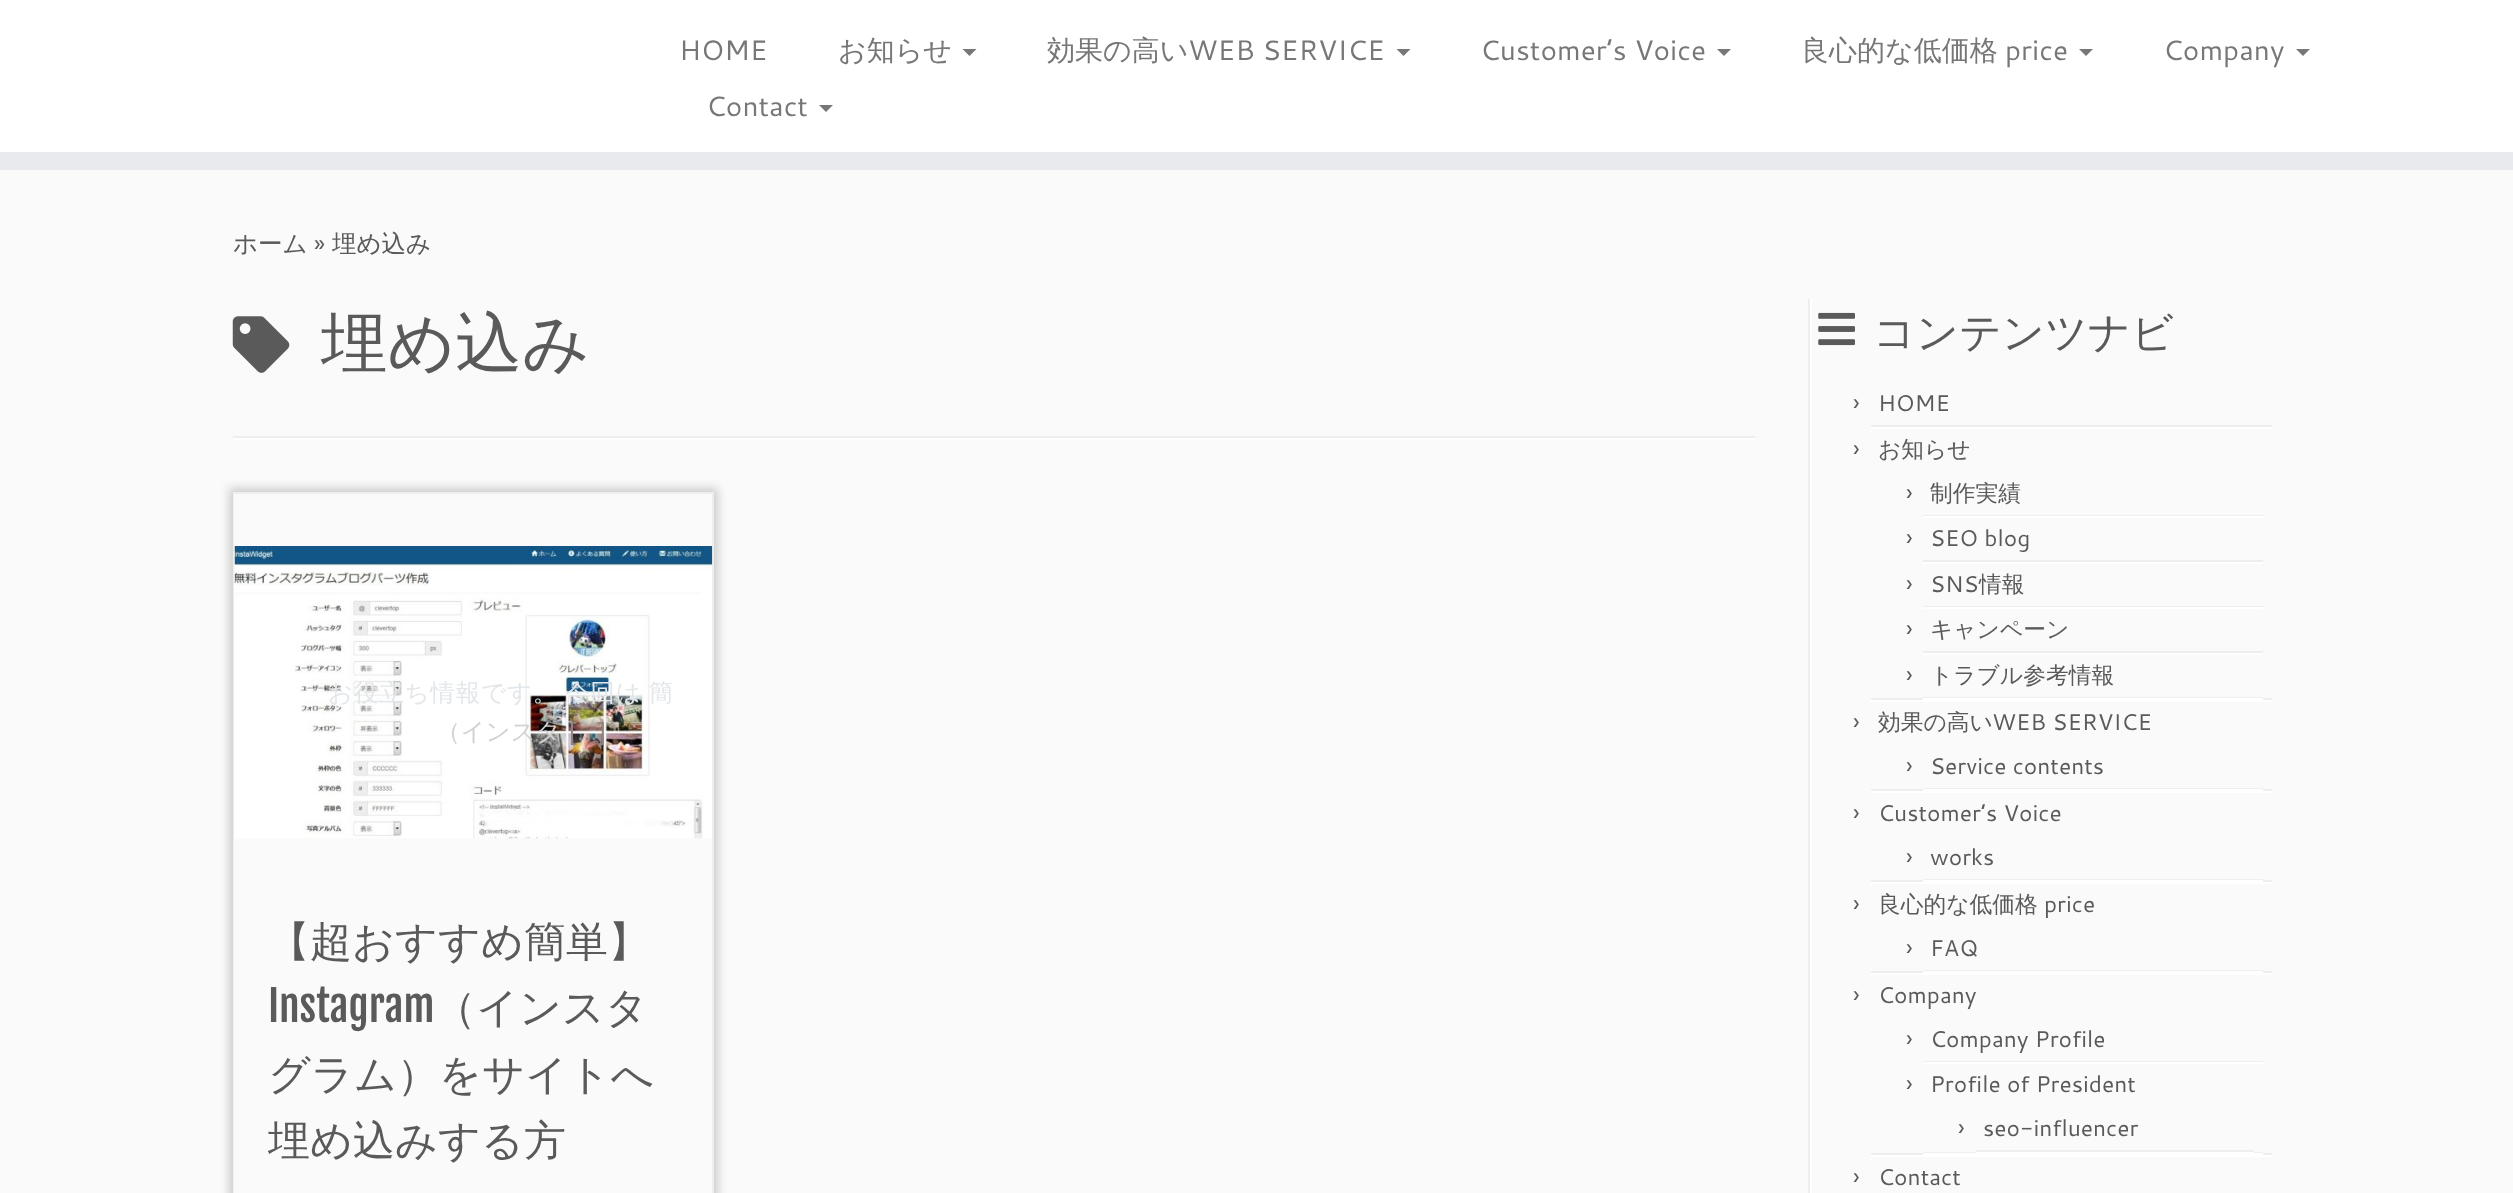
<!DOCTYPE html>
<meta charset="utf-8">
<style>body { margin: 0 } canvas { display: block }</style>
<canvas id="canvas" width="2513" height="1193"></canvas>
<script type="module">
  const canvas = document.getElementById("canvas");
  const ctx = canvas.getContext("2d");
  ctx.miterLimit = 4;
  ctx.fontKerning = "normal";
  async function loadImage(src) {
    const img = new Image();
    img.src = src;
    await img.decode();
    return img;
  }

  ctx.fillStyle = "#fafafa";
  ctx.fillRect(0, 0, 2513, 1193);
  ctx.fillStyle = "#ffffff";
  ctx.fillRect(0, 0, 2513, 152);
  ctx.fillStyle = "#e9eaee";
  ctx.fillRect(0, 152, 2513, 18);
  ctx.font = "28px Cantarell";
  ctx.fillStyle = "#777777";
  ctx.fillText("HOME", 679, 60);
  ctx.font = "500 28px WenQuanYi Zen Hei";
  ctx.fillText("お知らせ", 838, 60);
  ctx.beginPath();
  ctx.moveTo(962.5, 49);
  ctx.lineTo(976.5, 49);
  ctx.lineTo(969.5, 56);
  ctx.closePath();
  ctx.fill();
  ctx.fillText("効果の高い", 1047, 60);
  ctx.font = "28px Cantarell";
  ctx.fillText("WEB SERVICE", 1188, 60);
  ctx.beginPath();
  ctx.moveTo(1396.5, 49);
  ctx.lineTo(1410.5, 49);
  ctx.lineTo(1403.5, 56);
  ctx.closePath();
  ctx.fill();
  ctx.fillText("Customer’s Voice", 1480, 60);
  ctx.beginPath();
  ctx.moveTo(1717, 49);
  ctx.lineTo(1731, 49);
  ctx.lineTo(1724, 56);
  ctx.closePath();
  ctx.fill();
  ctx.font = "500 28px WenQuanYi Zen Hei";
  ctx.fillText("良心的な低価格", 1801, 60);
  ctx.font = "28px Cantarell";
  ctx.fillText("price", 2005, 60);
  ctx.beginPath();
  ctx.moveTo(2079, 49);
  ctx.lineTo(2093, 49);
  ctx.lineTo(2086, 56);
  ctx.closePath();
  ctx.fill();
  ctx.fillText("Company", 2163, 60);
  ctx.beginPath();
  ctx.moveTo(2296, 49);
  ctx.lineTo(2310, 49);
  ctx.lineTo(2303, 56);
  ctx.closePath();
  ctx.fill();
  ctx.fillText("Contact", 706, 116);
  ctx.beginPath();
  ctx.moveTo(819, 105);
  ctx.lineTo(833, 105);
  ctx.lineTo(826, 112);
  ctx.closePath();
  ctx.fill();
  ctx.font = "500 24.5px WenQuanYi Zen Hei";
  ctx.fillStyle = "#5a5a5a";
  ctx.fillText("ホーム", 233, 252);
  ctx.font = "24.5px Cantarell";
  ctx.fillText("»", 314, 252);
  ctx.font = "500 24.5px WenQuanYi Zen Hei";
  ctx.fillText("埋め込み", 332, 252);
  ctx.drawImage(await loadImage("img1.png"), 232, 316, 58, 57);
  ctx.font = "500 66.5px WenQuanYi Zen Hei";
  ctx.fillText("埋め込み", 321, 366);
  ctx.fillStyle = "#eeeeee";
  ctx.fillRect(233, 436, 1522, 2);
  ctx.fillStyle = "#ffffff";
  ctx.fillRect(233, 438, 1522, 2);
  ctx.save();
  ctx.beginPath();
  ctx.moveTo(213, 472);
  ctx.lineTo(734, 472);
  ctx.lineTo(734, 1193);
  ctx.lineTo(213, 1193);
  ctx.closePath();
  ctx.moveTo(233, 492);
  ctx.lineTo(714, 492);
  ctx.lineTo(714, 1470);
  ctx.lineTo(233, 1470);
  ctx.closePath();
  ctx.clip("evenodd");
  ctx.fillStyle = "#cccccc";
  ctx.filter = "blur(5px)";
  ctx.beginPath();
  ctx.rect(229, 488, 489, 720);
  ctx.fill();
  ctx.filter = "none";
  ctx.restore();
  ctx.fillStyle = "#eeeeee";
  ctx.fillRect(233, 492, 481, 2);
  ctx.beginPath();
  ctx.moveTo(714, 492);
  ctx.lineTo(714, 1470);
  ctx.lineTo(712, 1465);
  ctx.lineTo(712, 494);
  ctx.closePath();
  ctx.fill();
  ctx.beginPath();
  ctx.moveTo(233, 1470);
  ctx.lineTo(233, 492);
  ctx.lineTo(234, 494);
  ctx.lineTo(234, 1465);
  ctx.closePath();
  ctx.fill();
  ctx.drawImage(await loadImage("img2.png"), 234, 546, 479, 293);
  ctx.letterSpacing = "0.8px";
  ctx.wordSpacing = "-1px";
  ctx.font = "500 24.5px WenQuanYi Zen Hei";
  ctx.fillStyle = "#e3e7ea";
  ctx.fillText("お役立ち情報です。 今回は 簡", 328, 701);
  ctx.letterSpacing = "0px";
  ctx.wordSpacing = "0px";
  ctx.fillStyle = "#d3d1d0";
  ctx.fillText("（インスタ", 436, 740);
  ctx.font = "24.5px Cantarell";
  ctx.fillStyle = "#92837f";
  ctx.fillText("[…]", 568, 740);
  ctx.font = "500 42px WenQuanYi Zen Hei";
  ctx.fillStyle = "#5a5a5a";
  ctx.fillText("【超おすすめ簡単】", 268, 956);
  ctx.font = "42px Fjalla One";
  ctx.fillText("Instagram", 268, 1022);
  ctx.font = "500 42px WenQuanYi Zen Hei";
  ctx.fillText("（インスタ", 434, 1022);
  ctx.fillText("グラム）をサイトへ", 268, 1089);
  ctx.fillText("埋め込みする方", 268, 1155);
  ctx.fillStyle = "#eeeeee";
  ctx.fillRect(1808, 299, 2, 894);
  ctx.fillStyle = "#ffffff";
  ctx.fillRect(1810, 299, 2, 894);
  ctx.drawImage(await loadImage("img3.png"), 1818, 312, 37, 34);
  ctx.fillStyle = "#5a5a5a";
  ctx.fillText("コンテンツナビ", 1873, 347);
  ctx.fillStyle = "#eeeeee";
  ctx.fillRect(1871, 425, 401, 2);
  ctx.font = "24.5px Cantarell";
  ctx.fillStyle = "#5a5a5a";
  ctx.fillText("›", 1853, 411);
  ctx.font = "22.75px Cantarell";
  ctx.fillText("HOME", 1878, 411);
  ctx.fillStyle = "#ffffff";
  ctx.fillRect(1871, 427, 401, 2);
  ctx.fillStyle = "#eeeeee";
  ctx.fillRect(1871, 698, 401, 2);
  ctx.font = "24.5px Cantarell";
  ctx.fillStyle = "#5a5a5a";
  ctx.fillText("›", 1853, 457);
  ctx.font = "500 22.75px WenQuanYi Zen Hei";
  ctx.fillText("お知らせ", 1878, 457);
  ctx.fillStyle = "#eeeeee";
  ctx.fillRect(1923, 515, 340, 1);
  ctx.font = "24.5px Cantarell";
  ctx.fillStyle = "#5a5a5a";
  ctx.fillText("›", 1906, 501);
  ctx.font = "500 22.75px WenQuanYi Zen Hei";
  ctx.fillText("制作実績", 1930, 501);
  ctx.fillStyle = "#ffffff";
  ctx.fillRect(1923, 516, 340, 2);
  ctx.fillStyle = "#eeeeee";
  ctx.fillRect(1923, 560, 340, 2);
  ctx.font = "24.5px Cantarell";
  ctx.fillStyle = "#5a5a5a";
  ctx.fillText("›", 1906, 546);
  ctx.font = "22.75px Cantarell";
  ctx.fillText("SEO blog", 1930, 546);
  ctx.fillStyle = "#ffffff";
  ctx.fillRect(1923, 562, 340, 2);
  ctx.fillStyle = "#eeeeee";
  ctx.fillRect(1923, 606, 340, 1);
  ctx.font = "24.5px Cantarell";
  ctx.fillStyle = "#5a5a5a";
  ctx.fillText("›", 1906, 592);
  ctx.font = "22.75px Cantarell";
  ctx.fillText("SNS", 1930, 592);
  ctx.font = "500 22.75px WenQuanYi Zen Hei";
  ctx.fillText("情報", 1979, 592);
  ctx.fillStyle = "#ffffff";
  ctx.fillRect(1923, 607, 340, 2);
  ctx.fillStyle = "#eeeeee";
  ctx.fillRect(1923, 651, 340, 2);
  ctx.font = "24.5px Cantarell";
  ctx.fillStyle = "#5a5a5a";
  ctx.fillText("›", 1906, 637);
  ctx.font = "500 22.75px WenQuanYi Zen Hei";
  ctx.fillText("キャンペーン", 1930, 637);
  ctx.fillStyle = "#ffffff";
  ctx.fillRect(1923, 653, 340, 2);
  ctx.fillStyle = "#eeeeee";
  ctx.fillRect(1923, 697, 340, 1);
  ctx.font = "24.5px Cantarell";
  ctx.fillStyle = "#5a5a5a";
  ctx.fillText("›", 1906, 683);
  ctx.font = "500 22.75px WenQuanYi Zen Hei";
  ctx.fillText("トラブル参考情報", 1930, 683);
  ctx.fillStyle = "#ffffff";
  ctx.fillRect(1923, 698, 340, 2);
  ctx.fillRect(1871, 700, 401, 2);
  ctx.fillStyle = "#eeeeee";
  ctx.fillRect(1871, 789, 401, 2);
  ctx.font = "24.5px Cantarell";
  ctx.fillStyle = "#5a5a5a";
  ctx.fillText("›", 1853, 730);
  ctx.font = "500 22.75px WenQuanYi Zen Hei";
  ctx.fillText("効果の高い", 1878, 730);
  ctx.font = "22.75px Cantarell";
  ctx.fillText("WEB SERVICE", 1992, 730);
  ctx.fillStyle = "#eeeeee";
  ctx.fillRect(1923, 788, 340, 1);
  ctx.font = "24.5px Cantarell";
  ctx.fillStyle = "#5a5a5a";
  ctx.fillText("›", 1906, 774);
  ctx.font = "22.75px Cantarell";
  ctx.fillText("Service contents", 1930, 774);
  ctx.fillStyle = "#ffffff";
  ctx.fillRect(1923, 789, 340, 2);
  ctx.fillRect(1871, 791, 401, 2);
  ctx.fillStyle = "#eeeeee";
  ctx.fillRect(1871, 880, 401, 2);
  ctx.font = "24.5px Cantarell";
  ctx.fillStyle = "#5a5a5a";
  ctx.fillText("›", 1853, 821);
  ctx.font = "22.75px Cantarell";
  ctx.fillText("Customer’s Voice", 1878, 821);
  ctx.fillStyle = "#eeeeee";
  ctx.fillRect(1923, 879, 340, 1);
  ctx.font = "24.5px Cantarell";
  ctx.fillStyle = "#5a5a5a";
  ctx.fillText("›", 1906, 865);
  ctx.font = "22.75px Cantarell";
  ctx.fillText("works", 1930, 865);
  ctx.fillStyle = "#ffffff";
  ctx.fillRect(1923, 880, 340, 2);
  ctx.fillRect(1871, 882, 401, 2);
  ctx.fillStyle = "#eeeeee";
  ctx.fillRect(1871, 971, 401, 2);
  ctx.font = "24.5px Cantarell";
  ctx.fillStyle = "#5a5a5a";
  ctx.fillText("›", 1853, 912);
  ctx.font = "500 22.75px WenQuanYi Zen Hei";
  ctx.fillText("良心的な低価格", 1878, 912);
  ctx.font = "22.75px Cantarell";
  ctx.fillText("price", 2044, 912);
  ctx.fillStyle = "#eeeeee";
  ctx.fillRect(1923, 970, 340, 1);
  ctx.font = "24.5px Cantarell";
  ctx.fillStyle = "#5a5a5a";
  ctx.fillText("›", 1906, 956);
  ctx.font = "22.75px Cantarell";
  ctx.fillText("FAQ", 1930, 956);
  ctx.fillStyle = "#ffffff";
  ctx.fillRect(1923, 971, 340, 2);
  ctx.fillRect(1871, 973, 401, 2);
  ctx.fillStyle = "#eeeeee";
  ctx.fillRect(1871, 1153, 401, 2);
  ctx.font = "24.5px Cantarell";
  ctx.fillStyle = "#5a5a5a";
  ctx.fillText("›", 1853, 1003);
  ctx.font = "22.75px Cantarell";
  ctx.fillText("Company", 1878, 1003);
  ctx.fillStyle = "#eeeeee";
  ctx.fillRect(1923, 1061, 340, 1);
  ctx.font = "24.5px Cantarell";
  ctx.fillStyle = "#5a5a5a";
  ctx.fillText("›", 1906, 1047);
  ctx.font = "22.75px Cantarell";
  ctx.fillText("Company Profile", 1930, 1047);
  ctx.fillStyle = "#ffffff";
  ctx.fillRect(1923, 1062, 340, 2);
  ctx.fillStyle = "#eeeeee";
  ctx.fillRect(1923, 1152, 340, 1);
  ctx.font = "24.5px Cantarell";
  ctx.fillStyle = "#5a5a5a";
  ctx.fillText("›", 1906, 1092);
  ctx.font = "22.75px Cantarell";
  ctx.fillText("Profile of President", 1930, 1092);
  ctx.fillStyle = "#eeeeee";
  ctx.fillRect(1976, 1150, 278, 2);
  ctx.font = "24.5px Cantarell";
  ctx.fillStyle = "#5a5a5a";
  ctx.fillText("›", 1958, 1136);
  ctx.font = "22.75px Cantarell";
  ctx.fillText("seo-influencer", 1983, 1136);
  ctx.fillStyle = "#ffffff";
  ctx.fillRect(1976, 1152, 278, 1);
  ctx.fillRect(1923, 1153, 340, 2);
  ctx.fillRect(1871, 1155, 401, 2);
  ctx.font = "24.5px Cantarell";
  ctx.fillStyle = "#5a5a5a";
  ctx.fillText("›", 1853, 1185);
  ctx.font = "22.75px Cantarell";
  ctx.fillText("Contact", 1878, 1185);
</script>
